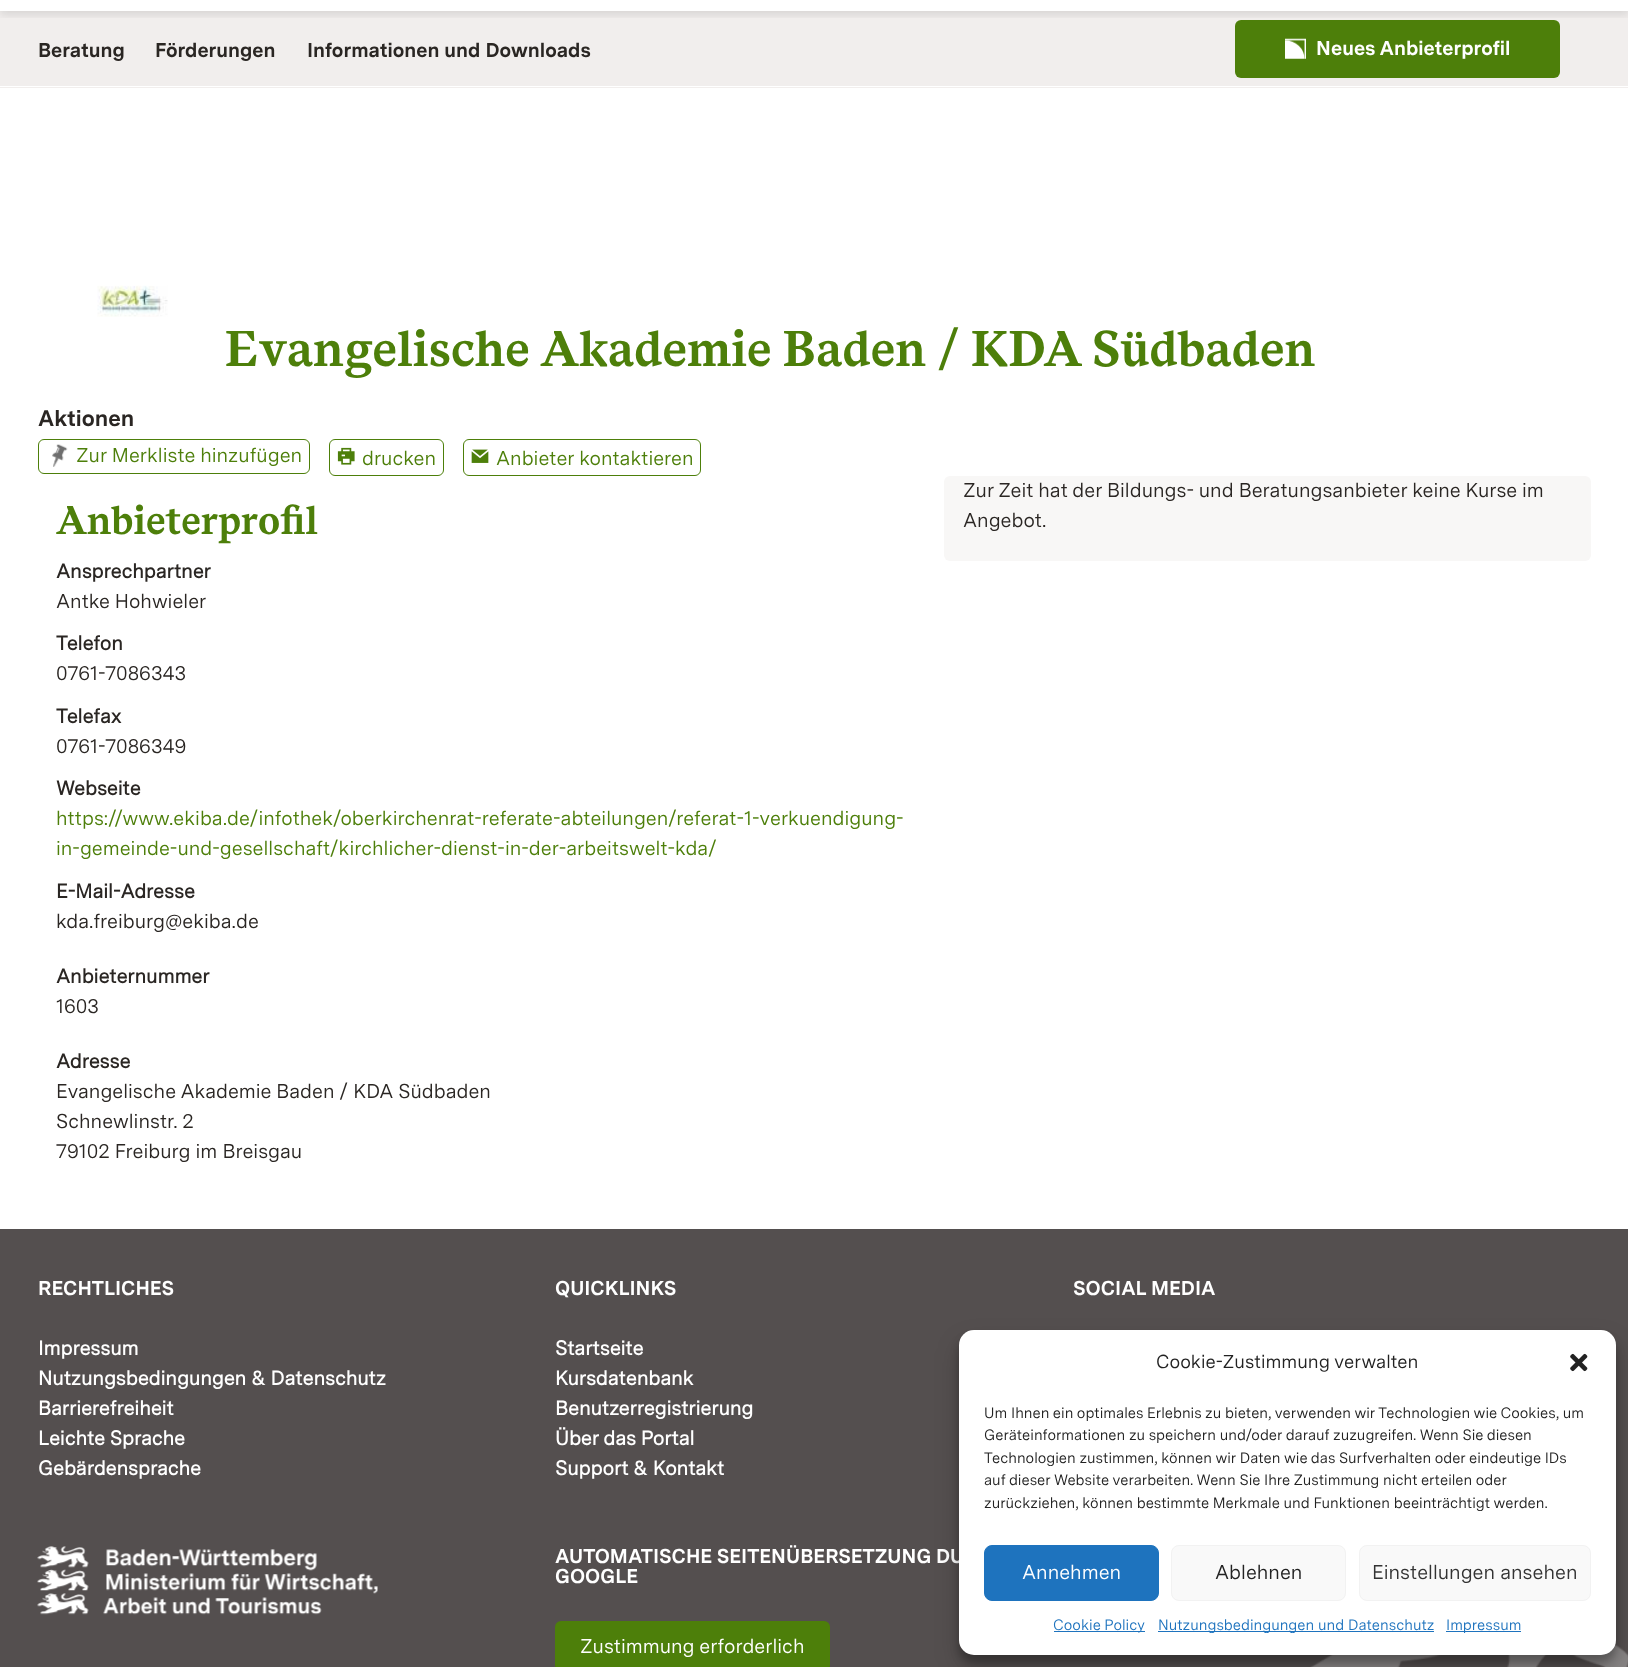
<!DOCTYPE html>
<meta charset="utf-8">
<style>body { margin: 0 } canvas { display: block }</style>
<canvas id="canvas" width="1628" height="1667"></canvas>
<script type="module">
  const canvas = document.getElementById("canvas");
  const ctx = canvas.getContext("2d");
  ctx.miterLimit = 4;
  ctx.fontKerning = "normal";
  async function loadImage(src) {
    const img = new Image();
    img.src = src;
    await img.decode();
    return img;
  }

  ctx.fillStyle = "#ffffff";
  ctx.fillRect(0, 0, 1628, 1667);
  ctx.fillStyle = "#f1eeed";
  ctx.fillRect(0, 11, 1628, 77);
  ctx.fillStyle = "#4d7f0a";
  ctx.beginPath();
  ctx.roundRect(1235, 20, 325, 58, 6);
  ctx.fill();
  ctx.save();
  ctx.beginPath();
  ctx.rect(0, 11, 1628, 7);
  ctx.clip();
  ctx.fillStyle = "rgba(0, 0, 0, 0.1)";
  ctx.filter = "blur(4px)";
  ctx.beginPath();
  ctx.rect(0, -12, 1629, 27);
  ctx.fill();
  ctx.filter = "none";
  ctx.restore();
  ctx.fillStyle = "#ffffff";
  ctx.fillRect(0, 86, 1628, 1);
  ctx.font = "bold 20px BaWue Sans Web";
  ctx.fillStyle = "#2a2623";
  ctx.fillText("Beratung", 38, 57);
  ctx.fillText("Förderungen", 155, 57);
  ctx.fillText("Informationen und Downloads", 307, 57);
  ctx.drawImage(await loadImage("img1.png"), 1285, 38, 21, 21);
  ctx.fillStyle = "#ffffff";
  ctx.fillText("Neues Anbieterprofil", 1316, 55);
  ctx.drawImage(await loadImage("img2.png"), 97, 285, 71, 32);
  ctx.font = "bold 50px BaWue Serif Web";
  ctx.fillStyle = "#4d7f0a";
  ctx.fillText("Evangelische Akademie Baden / KDA Südbaden", 225, 366);
  ctx.font = "bold 22.5px BaWue Sans Web";
  ctx.fillStyle = "#2a2623";
  ctx.fillText("Aktionen", 38, 426);
  ctx.drawImage(await loadImage("img3.png"), 52, 444, 16, 23);
  ctx.beginPath();
  ctx.roundRect(38.5, 439.5, 271, 34, 5.5);
  ctx.strokeStyle = "#4d7f0a";
  ctx.stroke();
  ctx.font = "20px BaWue Sans Web";
  ctx.fillStyle = "#4d7f0a";
  ctx.fillText("Zur Merkliste hinzufügen", 76, 462);
  ctx.beginPath();
  ctx.roundRect(329.5, 439.5, 114, 36, 5.5);
  ctx.stroke();
  ctx.drawImage(await loadImage("img4.png"), 337, 447, 18, 18);
  ctx.fillText("drucken", 362, 465);
  ctx.beginPath();
  ctx.roundRect(463.5, 439.5, 237, 36, 5.5);
  ctx.stroke();
  ctx.drawImage(await loadImage("img5.png"), 471, 449, 18, 14);
  ctx.fillText("Anbieter kontaktieren", 496, 465);
  ctx.font = "bold 40px BaWue Serif Web";
  ctx.fillText("Anbieterprofil", 56, 534);
  ctx.font = "bold 20px 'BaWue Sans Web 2'";
  ctx.fillStyle = "#2a2623";
  ctx.fillText("Ansprechpartner", 56, 578);
  ctx.font = "20px BaWue Sans Web";
  ctx.fillText("Antke Hohwieler", 56, 608);
  ctx.font = "bold 20px 'BaWue Sans Web 2'";
  ctx.fillText("Telefon", 56, 650);
  ctx.font = "20px BaWue Sans Web";
  ctx.fillText("0761-7086343", 56, 680);
  ctx.font = "bold 20px 'BaWue Sans Web 2'";
  ctx.fillText("Telefax", 56, 723);
  ctx.font = "20px BaWue Sans Web";
  ctx.fillText("0761-7086349", 56, 753);
  ctx.font = "bold 20px 'BaWue Sans Web 2'";
  ctx.fillText("Webseite", 56, 795);
  ctx.font = "20px BaWue Sans Web";
  ctx.fillStyle = "#4d7f0a";
  ctx.fillText("https://www.ekiba.de/infothek/oberkirchenrat-referate-abteilungen/referat-1-verkuendigung-", 56, 825);
  ctx.fillText("in-gemeinde-und-gesellschaft/kirchlicher-dienst-in-der-arbeitswelt-kda/", 56, 855);
  ctx.font = "bold 20px 'BaWue Sans Web 2'";
  ctx.fillStyle = "#2a2623";
  ctx.fillText("E-Mail-Adresse", 56, 898);
  ctx.font = "20px BaWue Sans Web";
  ctx.fillText("kda.freiburg@ekiba.de", 56, 928);
  ctx.font = "bold 20px 'BaWue Sans Web 2'";
  ctx.fillText("Anbieternummer", 56, 983);
  ctx.font = "20px BaWue Sans Web";
  ctx.fillText("1603", 56, 1013);
  ctx.font = "bold 20px 'BaWue Sans Web 2'";
  ctx.fillText("Adresse", 56, 1068);
  ctx.font = "20px BaWue Sans Web";
  ctx.fillText("Evangelische Akademie Baden / KDA Südbaden", 56, 1098);
  ctx.fillText("Schnewlinstr. 2", 56, 1128);
  ctx.fillText("79102 Freiburg im Breisgau", 56, 1158);
  ctx.fillStyle = "#f8f7f6";
  ctx.beginPath();
  ctx.roundRect(944, 476, 647, 85, 6);
  ctx.fill();
  ctx.fillStyle = "#2a2623";
  ctx.fillText("Zur Zeit hat der Bildungs- und Beratungsanbieter keine Kurse im", 963, 497);
  ctx.fillText("Angebot.", 963, 527);
  ctx.fillStyle = "#544f4f";
  ctx.fillRect(0, 1229, 1628, 438);
  ctx.drawImage(await loadImage("img6.png"), 1310, 1644, 318, 23);
  ctx.font = "bold 20px BaWue Sans Web";
  ctx.fillStyle = "#ffffff";
  ctx.fillText("RECHTLICHES", 38, 1295);
  ctx.font = "bold 20px 'BaWue Sans Web 2'";
  ctx.fillText("Impressum", 38, 1355);
  ctx.fillText("Nutzungsbedingungen & Datenschutz", 38, 1385);
  ctx.fillText("Barrierefreiheit", 38, 1415);
  ctx.fillText("Leichte Sprache", 38, 1445);
  ctx.fillText("Gebärdensprache", 38, 1475);
  ctx.drawImage(await loadImage("img7.png"), 37, 1546, 341, 69);
  ctx.font = "bold 20px BaWue Sans Web";
  ctx.fillText("QUICKLINKS", 555, 1295);
  ctx.font = "bold 20px 'BaWue Sans Web 2'";
  ctx.fillText("Startseite", 555, 1355);
  ctx.fillText("Kursdatenbank", 555, 1385);
  ctx.fillText("Benutzerregistrierung", 555, 1415);
  ctx.fillText("Über das Portal", 555, 1445);
  ctx.fillText("Support & Kontakt", 555, 1475);
  ctx.font = "bold 20px BaWue Sans Web";
  ctx.fillText("AUTOMATISCHE SEITENÜBERSETZUNG DU", 555, 1563);
  ctx.fillText("GOOGLE", 555, 1583);
  ctx.fillStyle = "#4d7f0a";
  ctx.beginPath();
  ctx.roundRect(555, 1621, 275, 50, 6);
  ctx.fill();
  ctx.font = "20px BaWue Sans Web";
  ctx.fillStyle = "#ffffff";
  ctx.fillText("Zustimmung erforderlich", 580, 1653);
  ctx.font = "bold 20px BaWue Sans Web";
  ctx.fillText("SOCIAL MEDIA", 1073, 1295);
  ctx.fillStyle = "rgba(0, 0, 0, 0.23)";
  ctx.filter = "blur(4px)";
  ctx.beginPath();
  ctx.roundRect(959, 1338, 657, 325, 15);
  ctx.fill();
  ctx.filter = "none";
  ctx.fillStyle = "rgba(0, 0, 0, 0.19)";
  ctx.filter = "blur(12.5px)";
  ctx.beginPath();
  ctx.roundRect(959, 1343, 657, 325, 15);
  ctx.fill();
  ctx.filter = "none";
  ctx.fillStyle = "#ffffff";
  ctx.beginPath();
  ctx.roundRect(959, 1330, 657, 325, 15);
  ctx.fill();
  ctx.font = "18.75px BaWue Sans Web";
  ctx.fillStyle = "#222222";
  ctx.fillText("Cookie-Zustimmung verwalten", 1156, 1368);
  ctx.drawImage(await loadImage("img8.png"), 1570, 1353, 18, 19);
  ctx.font = "15px BaWue Sans Web";
  ctx.fillText("Um Ihnen ein optimales Erlebnis zu bieten, verwenden wir Technologien wie Cookies, um", 984, 1418);
  ctx.fillText("Geräteinformationen zu speichern und/oder darauf zuzugreifen. Wenn Sie diesen", 984, 1440);
  ctx.fillText("Technologien zustimmen, können wir Daten wie das Surfverhalten oder eindeutige IDs", 984, 1463);
  ctx.fillText("auf dieser Website verarbeiten. Wenn Sie Ihre Zustimmung nicht erteilen oder", 984, 1485);
  ctx.fillText("zurückziehen, können bestimmte Merkmale und Funktionen beeinträchtigt werden.", 984, 1508);
  ctx.fillStyle = "#1e73be";
  ctx.beginPath();
  ctx.roundRect(984.5, 1545.5, 174, 55, 7.5);
  ctx.fill();
  ctx.strokeStyle = "#1e73be";
  ctx.stroke();
  ctx.font = "20px BaWue Sans Web";
  ctx.fillStyle = "#ffffff";
  ctx.fillText("Annehmen", 1022, 1579);
  ctx.fillStyle = "#f9f9f9";
  ctx.beginPath();
  ctx.roundRect(1171.5, 1545.5, 174, 55, 7.5);
  ctx.fill();
  ctx.strokeStyle = "#f2f2f2";
  ctx.stroke();
  ctx.fillStyle = "#222222";
  ctx.fillText("Ablehnen", 1215, 1579);
  ctx.fillStyle = "#f9f9f9";
  ctx.beginPath();
  ctx.roundRect(1359.5, 1545.5, 231, 55, 7.5);
  ctx.fill();
  ctx.stroke();
  ctx.fillStyle = "#333333";
  ctx.fillText("Einstellungen ansehen", 1372, 1579);
  ctx.fillStyle = "#1e73be";
  ctx.fillRect(1054, 1631, 91, 1);
  ctx.font = "15px BaWue Sans Web";
  ctx.fillText("Cookie Policy", 1053, 1630);
  ctx.fillRect(1158, 1631, 276, 1);
  ctx.fillText("Nutzungsbedingungen und Datenschutz", 1158, 1630);
  ctx.fillRect(1446, 1631, 75, 1);
  ctx.fillText("Impressum", 1446, 1630);
</script>
